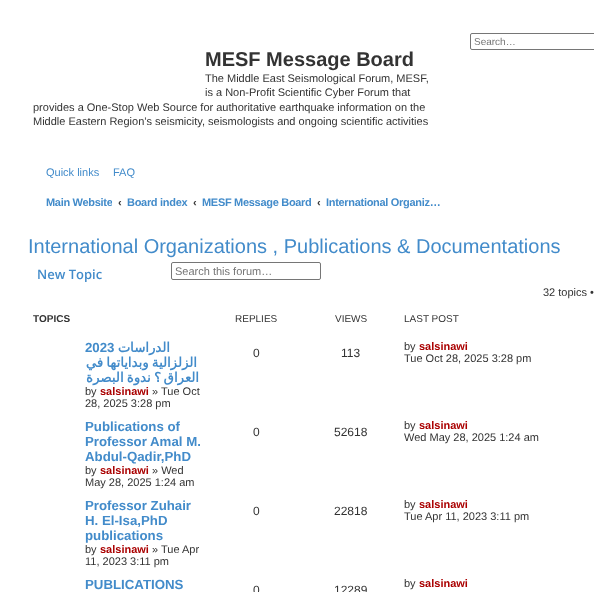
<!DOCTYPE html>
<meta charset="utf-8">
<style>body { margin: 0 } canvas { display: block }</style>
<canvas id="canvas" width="594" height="592"></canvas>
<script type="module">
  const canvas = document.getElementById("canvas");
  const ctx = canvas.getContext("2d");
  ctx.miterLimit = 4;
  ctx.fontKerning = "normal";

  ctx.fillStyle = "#ffffff";
  ctx.fillRect(0, 0, 594, 592);
  ctx.beginPath();
  ctx.roundRect(470.5, 33.5, 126, 16, 1.5);
  ctx.strokeStyle = "#767676";
  ctx.stroke();
  ctx.font = "10px Liberation Sans";
  ctx.fillStyle = "#757575";
  ctx.fillText("Search…", 474, 45);
  ctx.font = "bold 20px Liberation Sans";
  ctx.fillStyle = "#333333";
  ctx.fillText("MESF Message Board", 205, 66);
  ctx.font = "11px Liberation Sans";
  ctx.fillText("The Middle East Seismological Forum, MESF,", 205, 82);
  ctx.fillText("is a Non-Profit Scientific Cyber Forum that", 205, 96);
  ctx.fillText("provides a One-Stop Web Source for authoritative earthquake information on the", 33, 111);
  ctx.fillText("Middle Eastern Region’s seismicity, seismologists and ongoing scientific activities", 33, 125);
  ctx.fillStyle = "#428bca";
  ctx.fillText("Quick links", 46, 176);
  ctx.fillText("FAQ", 113, 176);
  ctx.save();
  ctx.beginPath();
  ctx.rect(38, 190, 74, 24);
  ctx.clip();
  ctx.letterSpacing = "-0.3px";
  ctx.font = "bold 11px Liberation Sans";
  ctx.fillText("Main Website", 46, 206);
  ctx.restore();
  ctx.font = "bold 11px Liberation Sans";
  ctx.fillStyle = "#333333";
  ctx.fillText("‹", 118, 206);
  ctx.letterSpacing = "-0.3px";
  ctx.fillStyle = "#428bca";
  ctx.fillText("Board index", 127, 206);
  ctx.letterSpacing = "0px";
  ctx.fillStyle = "#333333";
  ctx.fillText("‹", 193, 206);
  ctx.letterSpacing = "-0.3px";
  ctx.fillStyle = "#428bca";
  ctx.fillText("MESF Message Board", 202, 206);
  ctx.letterSpacing = "0px";
  ctx.fillStyle = "#333333";
  ctx.fillText("‹", 317, 206);
  ctx.letterSpacing = "-0.3px";
  ctx.fillStyle = "#428bca";
  ctx.fillText("International Organiz…", 326, 206);
  ctx.letterSpacing = "0px";
  ctx.font = "20px Liberation Sans";
  ctx.fillText("International Organizations , Publications & Documentations", 28, 253);
  ctx.font = "600 13px Open Sans";
  ctx.fillText("New Topic", 37, 279);
  ctx.beginPath();
  ctx.roundRect(171.5, 262.5, 149, 17, 1.5);
  ctx.stroke();
  ctx.font = "11px Liberation Sans";
  ctx.fillStyle = "#757575";
  ctx.fillText("Search this forum…", 175, 275);
  ctx.fillStyle = "#333333";
  ctx.fillText("32 topics •", 543, 296);
  ctx.font = "bold 10px Liberation Sans";
  ctx.fillText("TOPICS", 33, 322);
  ctx.font = "10px Liberation Sans";
  ctx.fillText("REPLIES", 235, 322);
  ctx.fillText("VIEWS", 335, 322);
  ctx.fillText("LAST POST", 404, 322);
  ctx.font = "bold 13.25px Liberation Sans";
  ctx.fillStyle = "#428bca";
  ctx.fillText("2023", 85, 352);
  ctx.direction = "rtl";
  ctx.font = "bold 13.25px DejaVu Sans";
  ctx.fillText("الدراسات", 170, 352);
  ctx.wordSpacing = "-1px";
  ctx.fillText("الزلزالية وبداياتها في", 197, 367);
  ctx.fillText("؟ ندوة البصرة", 161, 382);
  ctx.wordSpacing = "0px";
  ctx.fillText("العراق", 199, 382);
  ctx.direction = "ltr";
  ctx.font = "11px Liberation Sans";
  ctx.fillStyle = "#333333";
  ctx.fillText("by", 85, 395);
  ctx.font = "bold 11px Liberation Sans";
  ctx.fillStyle = "#aa0000";
  ctx.fillText("salsinawi", 100, 395);
  ctx.font = "11px Liberation Sans";
  ctx.fillStyle = "#333333";
  ctx.fillText("» Tue Oct", 152, 395);
  ctx.fillText("28, 2025 3:28 pm", 85, 407);
  ctx.font = "12px Liberation Sans";
  ctx.fillText("0", 253, 357);
  ctx.fillText("113", 341, 357);
  ctx.font = "11px Liberation Sans";
  ctx.fillText("by", 404, 350);
  ctx.font = "bold 11px Liberation Sans";
  ctx.fillStyle = "#aa0000";
  ctx.fillText("salsinawi", 419, 350);
  ctx.font = "11px Liberation Sans";
  ctx.fillStyle = "#333333";
  ctx.fillText("Tue Oct 28, 2025 3:28 pm", 404, 362);
  ctx.font = "bold 13.25px Liberation Sans";
  ctx.fillStyle = "#428bca";
  ctx.fillText("Publications of", 85, 431);
  ctx.fillText("Professor Amal M.", 85, 446);
  ctx.fillText("Abdul-Qadir,PhD", 85, 461);
  ctx.font = "11px Liberation Sans";
  ctx.fillStyle = "#333333";
  ctx.fillText("by", 85, 474);
  ctx.font = "bold 11px Liberation Sans";
  ctx.fillStyle = "#aa0000";
  ctx.fillText("salsinawi", 100, 474);
  ctx.font = "11px Liberation Sans";
  ctx.fillStyle = "#333333";
  ctx.fillText("» Wed", 152, 474);
  ctx.fillText("May 28, 2025 1:24 am", 85, 486);
  ctx.font = "12px Liberation Sans";
  ctx.fillText("0", 253, 436);
  ctx.fillText("52618", 334, 436);
  ctx.font = "11px Liberation Sans";
  ctx.fillText("by", 404, 429);
  ctx.font = "bold 11px Liberation Sans";
  ctx.fillStyle = "#aa0000";
  ctx.fillText("salsinawi", 419, 429);
  ctx.font = "11px Liberation Sans";
  ctx.fillStyle = "#333333";
  ctx.fillText("Wed May 28, 2025 1:24 am", 404, 441);
  ctx.font = "bold 13.25px Liberation Sans";
  ctx.fillStyle = "#428bca";
  ctx.fillText("Professor Zuhair", 85, 510);
  ctx.fillText("H. El-Isa,PhD", 85, 525);
  ctx.fillText("publications", 85, 540);
  ctx.font = "11px Liberation Sans";
  ctx.fillStyle = "#333333";
  ctx.fillText("by", 85, 553);
  ctx.font = "bold 11px Liberation Sans";
  ctx.fillStyle = "#aa0000";
  ctx.fillText("salsinawi", 100, 553);
  ctx.font = "11px Liberation Sans";
  ctx.fillStyle = "#333333";
  ctx.fillText("» Tue Apr", 152, 553);
  ctx.fillText("11, 2023 3:11 pm", 85, 565);
  ctx.font = "12px Liberation Sans";
  ctx.fillText("0", 253, 515);
  ctx.fillText("22818", 334, 515);
  ctx.font = "11px Liberation Sans";
  ctx.fillText("by", 404, 508);
  ctx.font = "bold 11px Liberation Sans";
  ctx.fillStyle = "#aa0000";
  ctx.fillText("salsinawi", 419, 508);
  ctx.font = "11px Liberation Sans";
  ctx.fillStyle = "#333333";
  ctx.fillText("Tue Apr 11, 2023 3:11 pm", 404, 520);
  ctx.font = "bold 13.25px Liberation Sans";
  ctx.fillStyle = "#428bca";
  ctx.fillText("PUBLICATIONS", 85, 589);
  ctx.font = "12px Liberation Sans";
  ctx.fillStyle = "#333333";
  ctx.fillText("0", 253, 594);
  ctx.fillText("12289", 334, 594);
  ctx.font = "11px Liberation Sans";
  ctx.fillText("by", 404, 587);
  ctx.font = "bold 11px Liberation Sans";
  ctx.fillStyle = "#aa0000";
  ctx.fillText("salsinawi", 419, 587);
</script>
